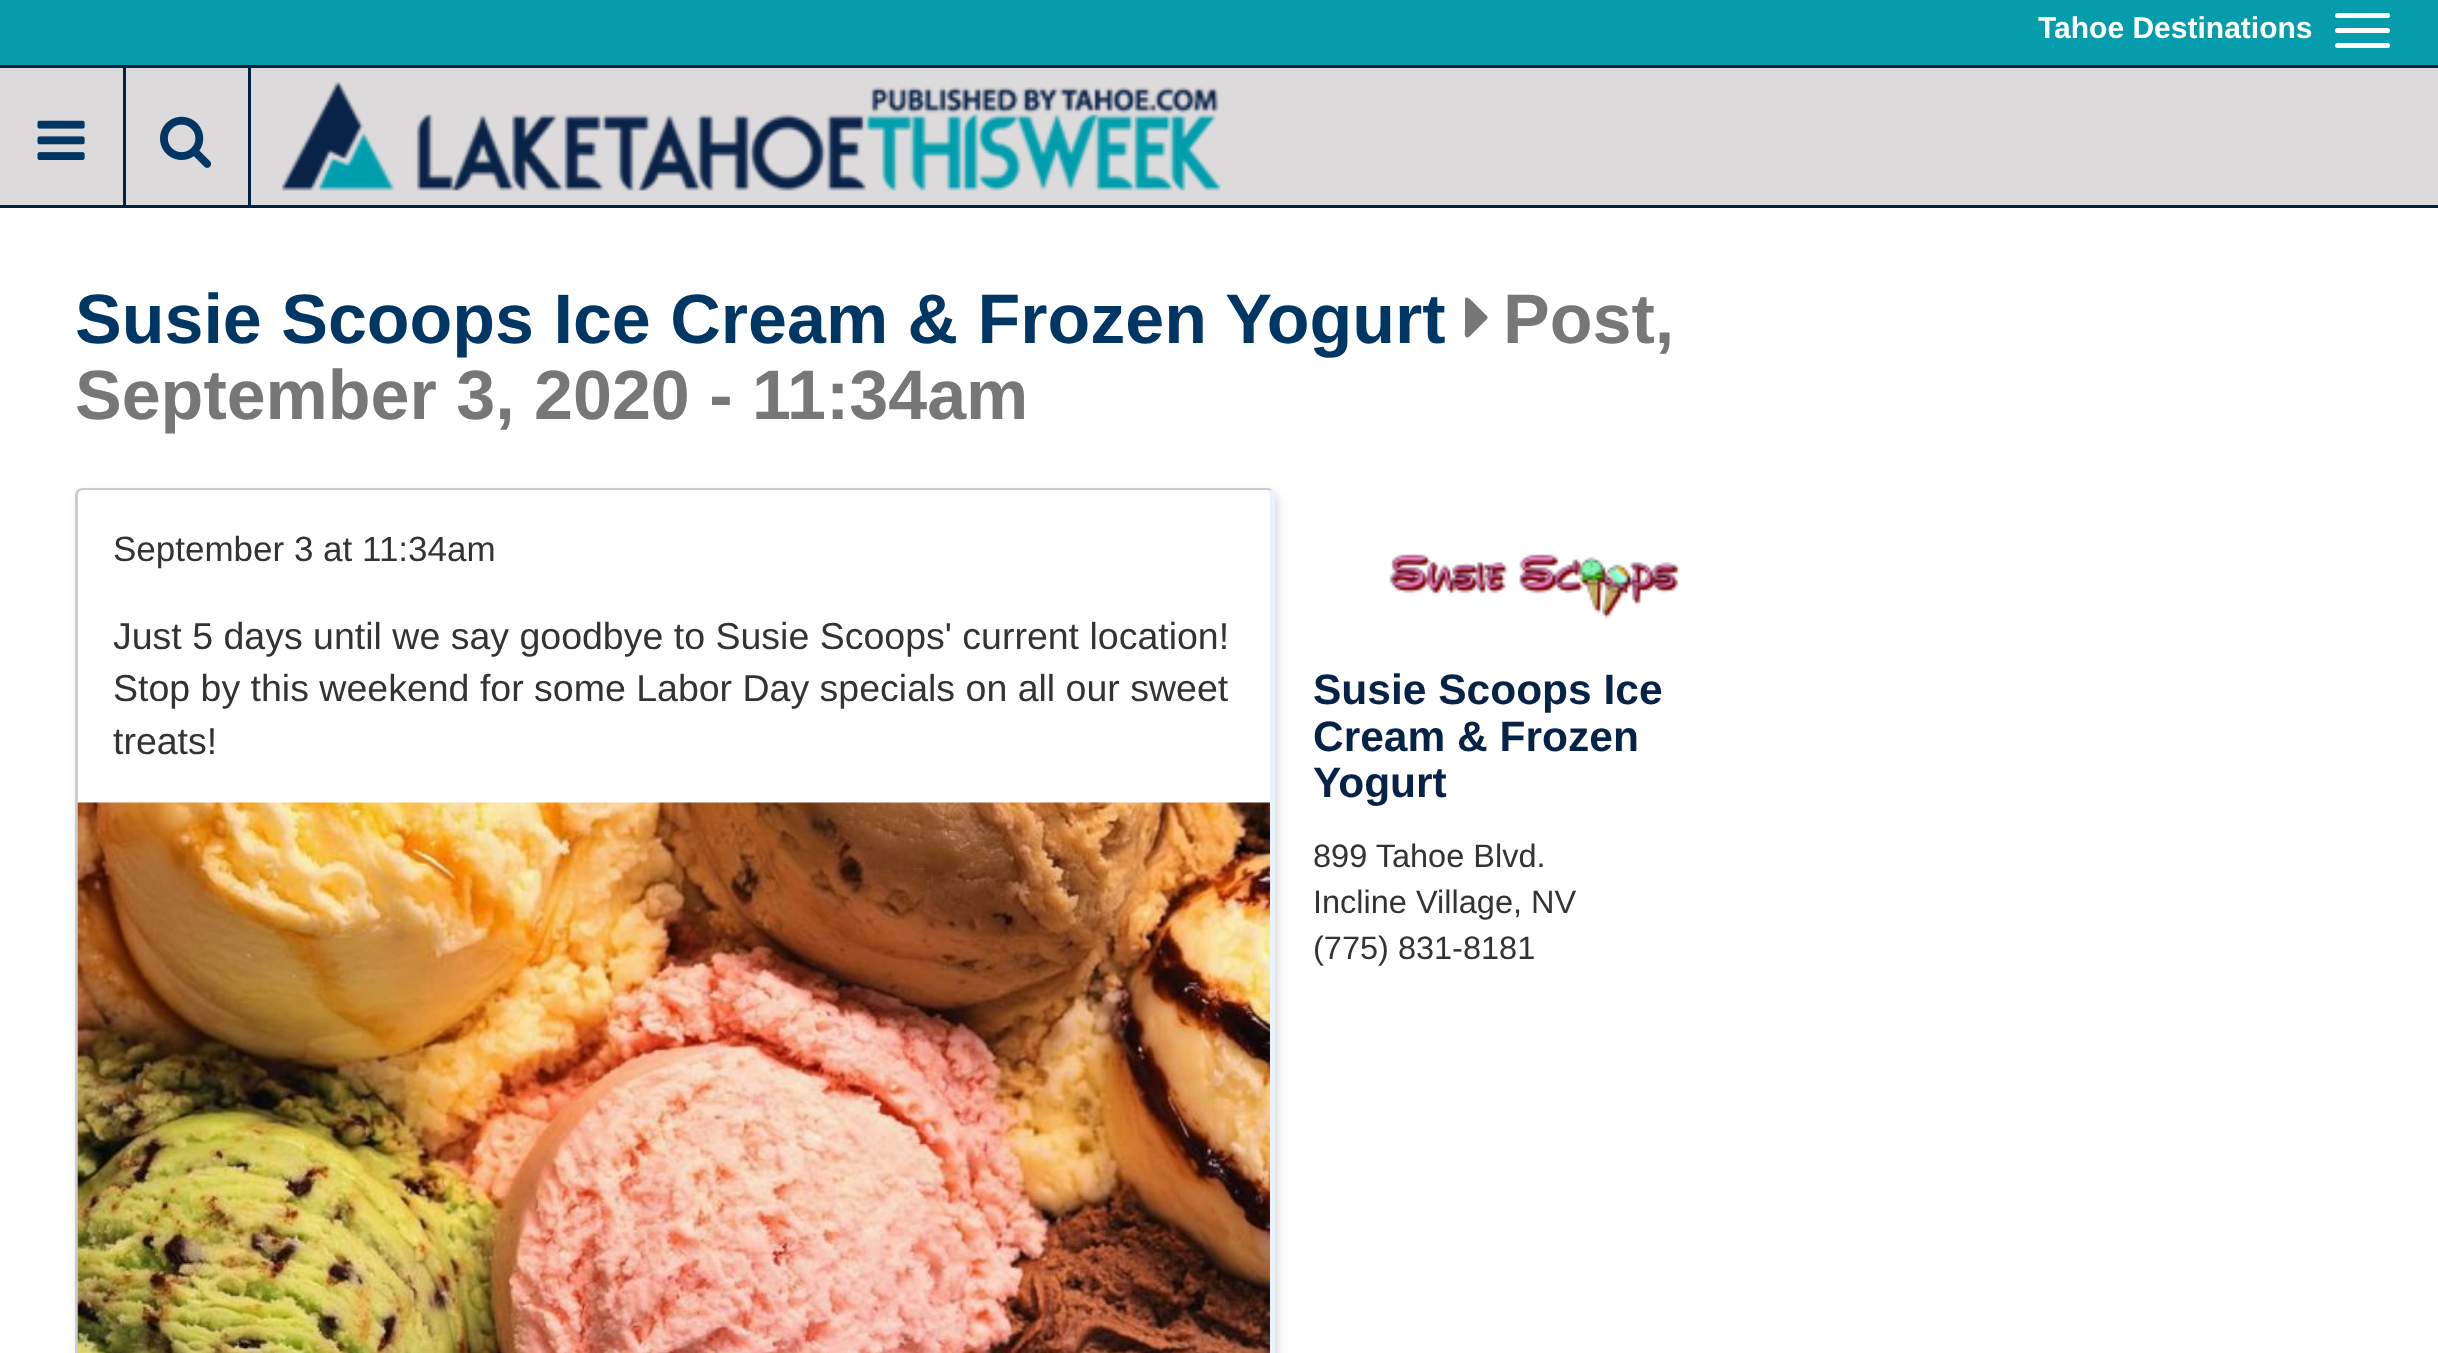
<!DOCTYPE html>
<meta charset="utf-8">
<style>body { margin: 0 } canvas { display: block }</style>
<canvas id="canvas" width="2438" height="1353"></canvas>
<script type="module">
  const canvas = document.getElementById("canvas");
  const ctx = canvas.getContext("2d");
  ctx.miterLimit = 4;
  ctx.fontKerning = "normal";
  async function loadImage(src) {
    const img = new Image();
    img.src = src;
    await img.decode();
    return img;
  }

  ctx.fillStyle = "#ffffff";
  ctx.fillRect(0, 0, 2438, 1353);
  ctx.fillStyle = "#059dab";
  ctx.fillRect(0, 0, 2438, 65);
  ctx.font = "bold 30px Liberation Sans";
  ctx.fillStyle = "#ffffff";
  ctx.fillText("Tahoe Destinations", 2038, 38);
  ctx.beginPath();
  ctx.roundRect(2335, 13, 55, 5, 2.5);
  ctx.fill();
  ctx.beginPath();
  ctx.roundRect(2335, 28, 55, 5, 2.5);
  ctx.fill();
  ctx.beginPath();
  ctx.roundRect(2335, 43, 55, 5, 2.5);
  ctx.fill();
  ctx.fillStyle = "#dcdadb";
  ctx.fillRect(0, 68, 2438, 137);
  ctx.fillStyle = "#002341";
  ctx.fillRect(0, 65, 2438, 3);
  ctx.fillRect(0, 205, 2438, 3);
  ctx.fillRect(123, 68, 3, 137);
  ctx.drawImage(await loadImage("img1.png"), 37, 120, 48, 40);
  ctx.fillRect(248, 68, 3, 137);
  ctx.drawImage(await loadImage("img2.png"), 160, 116, 52, 52);
  ctx.drawImage(await loadImage("img3.png"), 281, 82, 940, 109);
  ctx.font = "bold 70px Liberation Sans";
  ctx.fillStyle = "#003664";
  ctx.fillText("Susie Scoops Ice Cream & Frozen Yogurt", 75, 343);
  ctx.fillStyle = "#777777";
  ctx.beginPath();
  ctx.moveTo(1487, 316);
  ctx.bezierCurveTo(1489, 318, 1485, 321, 1484, 322);
  ctx.lineTo(1472, 334);
  ctx.bezierCurveTo(1471, 335, 1468, 339, 1466, 337);
  ctx.bezierCurveTo(1464, 335, 1465, 330, 1465, 329);
  ctx.lineTo(1465, 299);
  ctx.bezierCurveTo(1466, 295, 1471, 300, 1472, 301);
  ctx.closePath();
  ctx.fill();
  ctx.fillText("Post,", 1503, 343);
  ctx.fillText("September 3, 2020 - 11:34am", 75, 419);
  ctx.save();
  ctx.beginPath();
  ctx.moveTo(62, 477);
  ctx.lineTo(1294, 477);
  ctx.lineTo(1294, 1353);
  ctx.lineTo(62, 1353);
  ctx.closePath();
  ctx.moveTo(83, 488);
  ctx.lineTo(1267, 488);
  ctx.bezierCurveTo(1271.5, 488, 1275, 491.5, 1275, 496);
  ctx.lineTo(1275, 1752);
  ctx.bezierCurveTo(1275, 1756.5, 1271.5, 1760, 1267, 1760);
  ctx.lineTo(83, 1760);
  ctx.bezierCurveTo(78.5, 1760, 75, 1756.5, 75, 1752);
  ctx.lineTo(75, 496);
  ctx.bezierCurveTo(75, 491.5, 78.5, 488, 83, 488);
  ctx.closePath();
  ctx.clip("evenodd");
  ctx.fillStyle = "rgba(0, 0, 0, 0.15)";
  ctx.filter = "blur(5px)";
  ctx.beginPath();
  ctx.roundRect(78, 493, 1200, 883, 8);
  ctx.fill();
  ctx.filter = "none";
  ctx.restore();
  ctx.fillStyle = "#cccccc";
  ctx.beginPath();
  ctx.moveTo(82, 488);
  ctx.bezierCurveTo(80, 488, 78, 489, 77, 490);
  ctx.lineTo(79, 492);
  ctx.bezierCurveTo(80, 491, 81, 490, 82, 490);
  ctx.lineTo(1268, 490);
  ctx.lineTo(1269, 491);
  ctx.lineTo(1272, 489);
  ctx.lineTo(1268, 488);
  ctx.closePath();
  ctx.fill();
  ctx.fillStyle = "#eaf2fc";
  ctx.beginPath();
  ctx.moveTo(1272, 489);
  ctx.bezierCurveTo(1274, 490, 1275, 492, 1275, 495);
  ctx.lineTo(1275, 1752);
  ctx.bezierCurveTo(1275, 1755, 1274, 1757, 1272, 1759);
  ctx.lineTo(1269, 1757);
  ctx.lineTo(1270, 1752);
  ctx.lineTo(1270, 495);
  ctx.lineTo(1269, 491);
  ctx.closePath();
  ctx.fill();
  ctx.fillStyle = "#cccccc";
  ctx.beginPath();
  ctx.moveTo(75, 495);
  ctx.lineTo(75, 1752);
  ctx.bezierCurveTo(75, 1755, 76, 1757, 77, 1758);
  ctx.lineTo(79, 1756);
  ctx.lineTo(78, 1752);
  ctx.lineTo(78, 495);
  ctx.lineTo(79, 492);
  ctx.lineTo(77, 490);
  ctx.bezierCurveTo(76, 491, 75, 493, 75, 495);
  ctx.closePath();
  ctx.fill();
  ctx.font = "35px Liberation Sans";
  ctx.fillStyle = "#333333";
  ctx.fillText("September 3 at 11:34am", 113, 561);
  ctx.font = "37.5px Liberation Sans";
  ctx.fillText("Just 5 days until we say goodbye to Susie Scoops' current location!", 113, 649);
  ctx.fillText("Stop by this weekend for some Labor Day specials on all our sweet", 113, 701);
  ctx.fillText("treats!", 113, 754);
  ctx.drawImage(await loadImage("img4.png"), 77, 802, 1193, 551);
  ctx.drawImage(await loadImage("img5.png"), 1389, 553, 291, 66);
  ctx.font = "bold 42.5px Liberation Sans";
  ctx.fillStyle = "#072247";
  ctx.fillText("Susie Scoops Ice", 1313, 704);
  ctx.fillText("Cream & Frozen", 1313, 751);
  ctx.fillText("Yogurt", 1313, 797);
  ctx.font = "32.5px Liberation Sans";
  ctx.fillStyle = "#333333";
  ctx.fillText("899 Tahoe Blvd.", 1313, 867);
  ctx.fillText("Incline Village, NV", 1313, 913);
  ctx.fillText("(775) 831-8181", 1313, 959);
</script>
